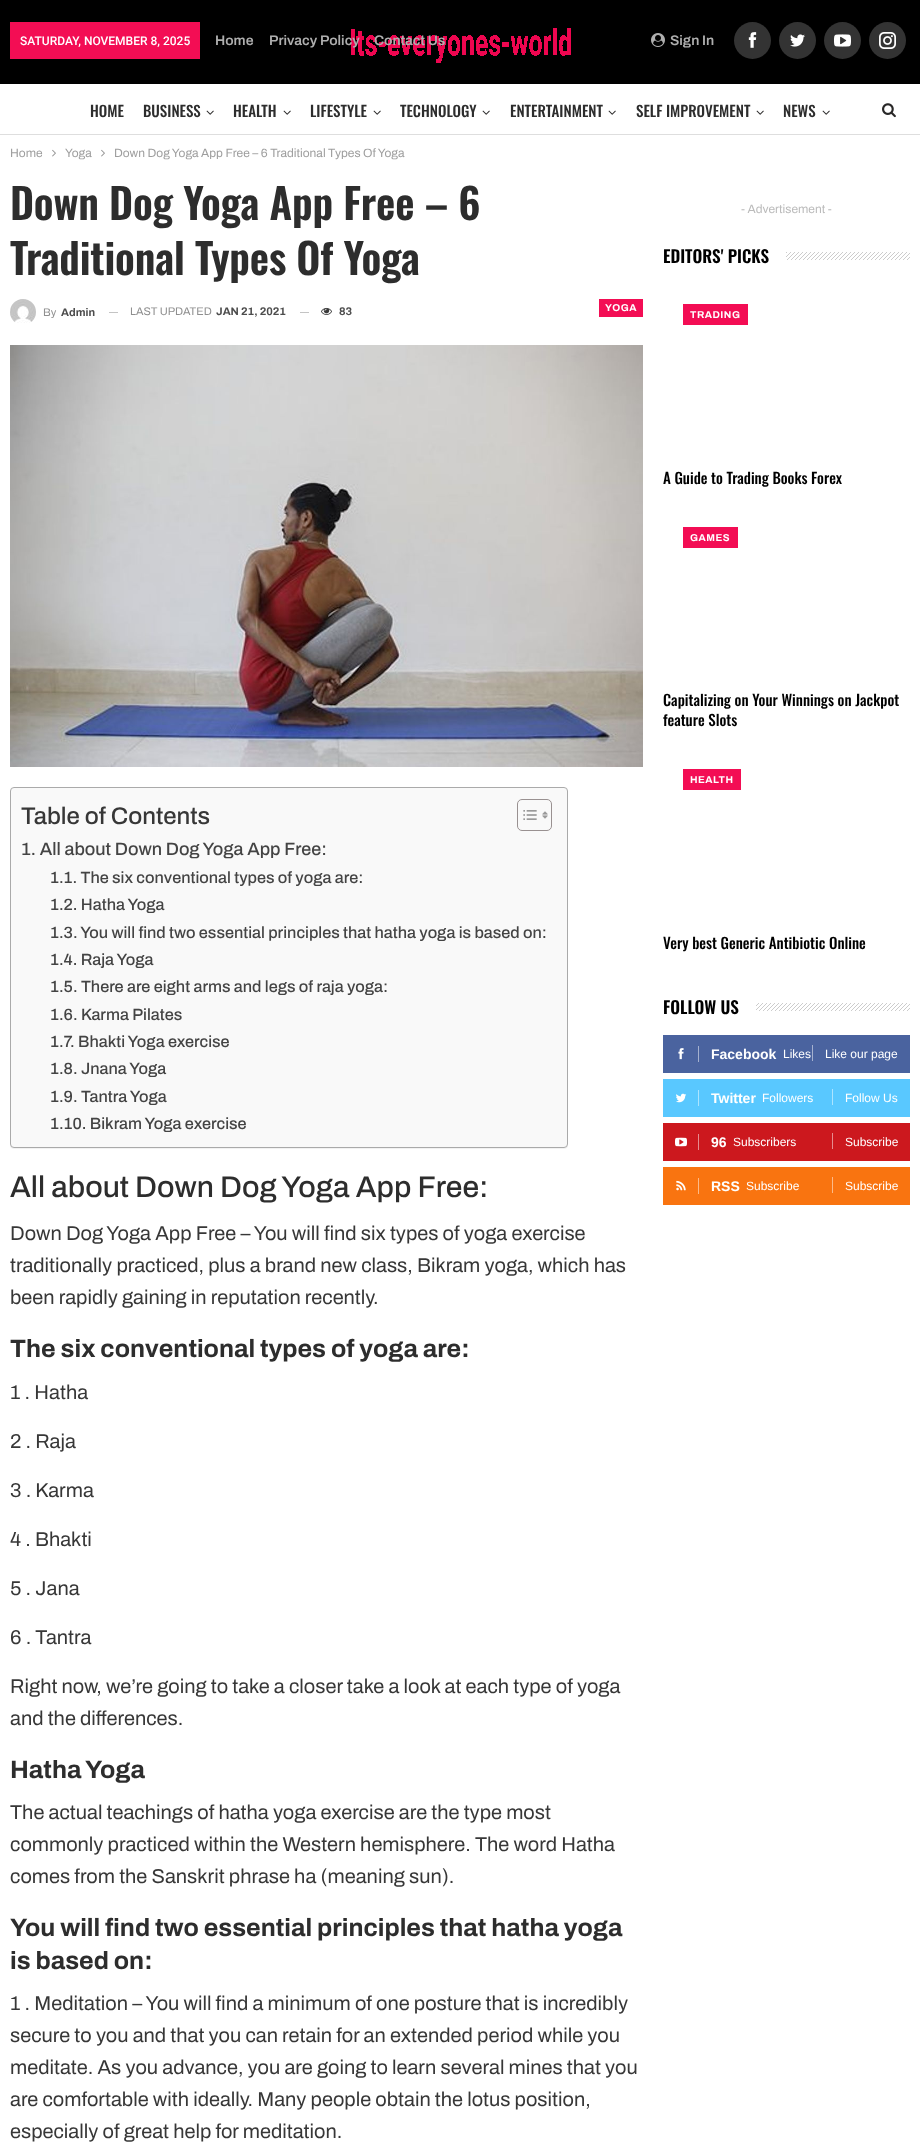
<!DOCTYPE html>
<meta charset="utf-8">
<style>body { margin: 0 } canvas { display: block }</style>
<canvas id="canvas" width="920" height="2145"></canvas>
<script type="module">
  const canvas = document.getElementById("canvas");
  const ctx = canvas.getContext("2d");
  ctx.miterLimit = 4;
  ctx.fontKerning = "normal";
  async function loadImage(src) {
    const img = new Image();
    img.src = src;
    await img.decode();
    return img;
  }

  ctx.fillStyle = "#ffffff";
  ctx.fillRect(0, 0, 920, 2145);
  ctx.fillStyle = "#000000";
  ctx.fillRect(0, 0, 920, 84);
  ctx.drawImage(await loadImage("img1.png"), 351, 28, 220, 35);
  ctx.fillStyle = "rgba(0, 0, 0, 0.07)";
  ctx.fillRect(438, 58, 4, 1);
  ctx.fillStyle = "#f30d54";
  ctx.fillRect(10, 22, 190, 37);
  ctx.font = "500 12px Roboto";
  ctx.fillStyle = "#ffffff";
  ctx.fillText("SATURDAY, NOVEMBER 8, 2025", 20, 45);
  ctx.font = "600 14px Archivo";
  ctx.fillStyle = "#aeaeae";
  ctx.fillText("Home", 215, 45);
  ctx.fillText("Privacy Policy", 269, 45);
  ctx.fillText("Contact Us", 374, 45);
  ctx.drawImage(await loadImage("img2.png"), 651, 33, 14, 14);
  ctx.fillText("Sign In", 670, 45);
  ctx.fillStyle = "#333333";
  ctx.beginPath();
  ctx.arc(752.5, 40.5, 18.5, 0, Math.PI * 2);
  ctx.fill();
  ctx.drawImage(await loadImage("img3.png"), 748, 32, 9, 16);
  ctx.beginPath();
  ctx.arc(797.5, 40.5, 18.5, 0, Math.PI * 2);
  ctx.fill();
  ctx.drawImage(await loadImage("img4.png"), 790, 34, 15, 13);
  ctx.beginPath();
  ctx.arc(842.5, 40.5, 18.5, 0, Math.PI * 2);
  ctx.fill();
  ctx.drawImage(await loadImage("img5.png"), 834, 34, 17, 13);
  ctx.beginPath();
  ctx.arc(887.5, 40.5, 18.5, 0, Math.PI * 2);
  ctx.fill();
  ctx.drawImage(await loadImage("img6.png"), 879, 32, 17, 17);
  ctx.fillStyle = "#dedede";
  ctx.fillRect(0, 134, 920, 1);
  ctx.font = "500 15px Oswald";
  ctx.fillStyle = "#2d2d2d";
  ctx.fillText("HOME", 90, 117);
  ctx.fillText("BUSINESS", 143, 117);
  ctx.drawImage(await loadImage("img7.png"), 206, 110, 8, 5);
  ctx.fillText("HEALTH", 233, 117);
  ctx.drawImage(await loadImage("img7.png"), 283, 110, 8, 5);
  ctx.fillText("LIFESTYLE", 310, 117);
  ctx.drawImage(await loadImage("img7.png"), 373, 110, 8, 5);
  ctx.fillText("TECHNOLOGY", 400, 117);
  ctx.drawImage(await loadImage("img7.png"), 482, 110, 8, 5);
  ctx.fillText("ENTERTAINMENT", 510, 117);
  ctx.drawImage(await loadImage("img7.png"), 608, 110, 8, 5);
  ctx.fillText("SELF IMPROVEMENT", 636, 117);
  ctx.drawImage(await loadImage("img7.png"), 756, 110, 8, 5);
  ctx.fillText("NEWS", 783, 117);
  ctx.drawImage(await loadImage("img7.png"), 822, 110, 8, 5);
  ctx.drawImage(await loadImage("img8.png"), 882, 103, 14, 15);
  ctx.font = "12px Archivo";
  ctx.fillStyle = "#9e9e9e";
  ctx.fillText("Home", 10, 157);
  ctx.drawImage(await loadImage("img9.png"), 52, 149, 4, 8);
  ctx.fillText("Yoga", 65, 157);
  ctx.drawImage(await loadImage("img9.png"), 101, 149, 4, 8);
  ctx.fillText("Down Dog Yoga App Free – 6 Traditional Types Of Yoga", 114, 157);
  ctx.letterSpacing = "-0.2px";
  ctx.font = "600 42px Oswald";
  ctx.fillStyle = "#2d2d2d";
  ctx.fillText("Down Dog Yoga App Free – 6", 10, 220);
  ctx.fillText("Traditional Types Of Yoga", 10, 275);
  ctx.drawImage(await loadImage("img10.png"), 10, 299, 26, 24);
  ctx.letterSpacing = "0px";
  ctx.font = "11px Archivo";
  ctx.fillStyle = "#8f8f8f";
  ctx.fillText("By", 43, 316);
  ctx.font = "bold 11px Archivo";
  ctx.fillStyle = "#4d4d4d";
  ctx.fillText("Admin", 61, 316);
  ctx.fillStyle = "#c4c4c4";
  ctx.fillRect(109, 312, 9, 1);
  ctx.font = "11px Archivo";
  ctx.fillStyle = "#8f8f8f";
  ctx.fillText("LAST UPDATED", 130, 315);
  ctx.font = "bold 11px Archivo";
  ctx.fillStyle = "#4d4d4d";
  ctx.fillText("JAN 21, 2021", 216, 315);
  ctx.fillStyle = "#c4c4c4";
  ctx.fillRect(300, 312, 9, 1);
  ctx.drawImage(await loadImage("img11.png"), 321, 307, 11, 8);
  ctx.fillStyle = "#4d4d4d";
  ctx.fillText("83", 339, 315);
  ctx.fillStyle = "#f30d54";
  ctx.fillRect(599, 299, 44, 18);
  ctx.letterSpacing = "0.5px";
  ctx.font = "bold 10px Archivo";
  ctx.fillStyle = "#ffffff";
  ctx.fillText("YOGA", 605, 311);
  ctx.drawImage(await loadImage("img12.png"), 10, 345, 633, 422);
  ctx.fillStyle = "rgba(0, 0, 0, 0.05)";
  ctx.filter = "blur(0.5px)";
  ctx.beginPath();
  ctx.roundRect(10, 788, 558, 361, 4);
  ctx.fill();
  ctx.filter = "none";
  ctx.fillStyle = "#f9f9f9";
  ctx.beginPath();
  ctx.roundRect(10.5, 787.5, 557, 360, 3.5);
  ctx.fill();
  ctx.strokeStyle = "#aaaaaa";
  ctx.stroke();
  ctx.letterSpacing = "0px";
  ctx.font = "500 24px Archivo";
  ctx.fillStyle = "#373737";
  ctx.fillText("Table of Contents", 21, 824);
  ctx.beginPath();
  ctx.roundRect(517.5, 799.5, 34, 31, 4.5);
  ctx.strokeStyle = "#999191";
  ctx.stroke();
  ctx.drawImage(await loadImage("img13.png"), 523, 810, 14, 10);
  ctx.drawImage(await loadImage("img14.png"), 542, 811, 6, 8);
  ctx.font = "500 18px Archivo";
  ctx.fillStyle = "#444444";
  ctx.fillText("1. All about Down Dog Yoga App Free:", 21, 855);
  ctx.font = "500 16.25px Archivo";
  ctx.fillText("1.1. The six conventional types of yoga are:", 50, 883);
  ctx.fillText("1.2. Hatha Yoga", 50, 910);
  ctx.fillText("1.3. You will find two essential principles that hatha yoga is based on:", 50, 938);
  ctx.fillText("1.4. Raja Yoga", 50, 965);
  ctx.fillText("1.5. There are eight arms and legs of raja yoga:", 50, 992);
  ctx.fillText("1.6. Karma Pilates", 50, 1020);
  ctx.fillText("1.7", 50, 1047);
  ctx.fillText(". Bhakti Yoga exercise", 70, 1047);
  ctx.fillText("1.8. Jnana Yoga", 50, 1074);
  ctx.fillText("1.9. Tantra Yoga", 50, 1102);
  ctx.fillText("1.10. Bikram Yoga exercise", 50, 1129);
  ctx.font = "500 30px Archivo";
  ctx.fillStyle = "#2d2d2d";
  ctx.fillText("All about Down Dog Yoga App Free:", 10, 1197);
  ctx.font = "20px Archivo";
  ctx.fillStyle = "#373737";
  ctx.fillText("Down Dog Yoga App Free – You will find six types of yoga exercise", 10, 1240);
  ctx.fillText("traditionally practiced, plus a brand new class, Bikram yoga, which has", 10, 1272);
  ctx.fillText("been rapidly gaining in reputation recently.", 10, 1304);
  ctx.font = "bold 25px Archivo";
  ctx.fillStyle = "#2d2d2d";
  ctx.fillText("The six conventional types of yoga are:", 10, 1357);
  ctx.font = "20px Archivo";
  ctx.fillStyle = "#373737";
  ctx.fillText("1 . Hatha", 10, 1399);
  ctx.fillText("2 . Raja", 10, 1448);
  ctx.fillText("3 . Karma", 10, 1497);
  ctx.fillText("4 . Bhakti", 10, 1546);
  ctx.fillText("5 . Jana", 10, 1595);
  ctx.fillText("6 . Tantra", 10, 1644);
  ctx.fillText("Right now, we’re going to take a closer take a look at each type of yoga", 10, 1693);
  ctx.fillText("and the differences.", 10, 1725);
  ctx.font = "bold 25px Archivo";
  ctx.fillStyle = "#2d2d2d";
  ctx.fillText("Hatha Yoga", 10, 1778);
  ctx.font = "20px Archivo";
  ctx.fillStyle = "#373737";
  ctx.fillText("The actual teachings of hatha yoga exercise are the type most", 10, 1819);
  ctx.fillText("commonly practiced within the Western hemisphere. The word Hatha", 10, 1851);
  ctx.fillText("comes from the Sanskrit phrase ha (meaning sun).", 10, 1883);
  ctx.font = "bold 25px Archivo";
  ctx.fillStyle = "#2d2d2d";
  ctx.fillText("You will find two essential principles that hatha yoga", 10, 1936);
  ctx.fillText("is based on:", 10, 1969);
  ctx.font = "20px Archivo";
  ctx.fillStyle = "#373737";
  ctx.fillText("1 . Meditation – You will find a minimum of one posture that is incredibly", 10, 2010);
  ctx.fillText("secure to you and that you can retain for an extended period while you", 10, 2042);
  ctx.fillText("meditate. As you advance, you are going to learn several mines that you", 10, 2074);
  ctx.fillText("are comfortable with ideally. Many people obtain the lotus position,", 10, 2106);
  ctx.fillText("especially of great help for meditation.", 10, 2138);
  ctx.font = "12px Archivo";
  ctx.fillStyle = "#bbbbbb";
  ctx.fillText("- Advertisement -", 741, 213);
  ctx.font = "600 17px Oswald";
  ctx.fillStyle = "#000000";
  ctx.fillText("EDITORS' PICKS", 663, 263);
  ctx.drawImage(await loadImage("img15.png"), 786, 252, 124, 8);
  ctx.fillStyle = "#f30d54";
  ctx.fillRect(683, 304, 65, 21);
  ctx.letterSpacing = "0.5px";
  ctx.font = "bold 10px Archivo";
  ctx.fillStyle = "#ffffff";
  ctx.fillText("TRADING", 690, 318);
  ctx.letterSpacing = "0px";
  ctx.font = "500 15px Oswald";
  ctx.fillStyle = "#000000";
  ctx.fillText("A Guide to Trading Books Forex", 663, 484);
  ctx.fillStyle = "#f30d54";
  ctx.fillRect(683, 527, 55, 21);
  ctx.letterSpacing = "0.5px";
  ctx.font = "bold 10px Archivo";
  ctx.fillStyle = "#ffffff";
  ctx.fillText("GAMES", 690, 541);
  ctx.letterSpacing = "0px";
  ctx.font = "500 15px Oswald";
  ctx.fillStyle = "#000000";
  ctx.fillText("Capitalizing on Your Winnings on Jackpot", 663, 706);
  ctx.fillText("feature Slots", 663, 726);
  ctx.fillStyle = "#f30d54";
  ctx.fillRect(683, 769, 58, 21);
  ctx.letterSpacing = "0.5px";
  ctx.font = "bold 10px Archivo";
  ctx.fillStyle = "#ffffff";
  ctx.fillText("HEALTH", 690, 783);
  ctx.letterSpacing = "0px";
  ctx.font = "500 15px Oswald";
  ctx.fillStyle = "#000000";
  ctx.fillText("Very best Generic Antibiotic Online", 663, 949);
  ctx.font = "600 17px Oswald";
  ctx.fillText("FOLLOW US", 663, 1014);
  ctx.drawImage(await loadImage("img16.png"), 756, 1003, 154, 8);
  ctx.fillStyle = "#4a639f";
  ctx.fillRect(663, 1035, 247, 38);
  ctx.drawImage(await loadImage("img17.png"), 678, 1048, 6, 12);
  ctx.fillStyle = "#a5b1cf";
  ctx.fillRect(698, 1046, 1, 16);
  ctx.font = "bold 14px Liberation Sans";
  ctx.fillStyle = "#ffffff";
  ctx.fillText("Facebook", 711, 1059);
  ctx.font = "12px Liberation Sans";
  ctx.fillText("Likes", 783, 1058);
  ctx.fillStyle = "#a5b1cf";
  ctx.fillRect(812, 1045, 1, 16);
  ctx.fillStyle = "#ffffff";
  ctx.fillText("Like our page", 825, 1058);
  ctx.fillStyle = "#59c8ff";
  ctx.fillRect(663, 1079, 247, 38);
  ctx.drawImage(await loadImage("img18.png"), 676, 1093, 11, 10);
  ctx.fillStyle = "#ace4ff";
  ctx.fillRect(698, 1090, 1, 16);
  ctx.font = "bold 14px Liberation Sans";
  ctx.fillStyle = "#ffffff";
  ctx.fillText("Twitter", 711, 1103);
  ctx.font = "12px Liberation Sans";
  ctx.fillText("Followers", 762, 1102);
  ctx.fillStyle = "#ace4ff";
  ctx.fillRect(832, 1089, 1, 16);
  ctx.fillStyle = "#ffffff";
  ctx.fillText("Follow Us", 845, 1102);
  ctx.fillStyle = "#cc181e";
  ctx.fillRect(663, 1123, 247, 38);
  ctx.drawImage(await loadImage("img19.png"), 675, 1137, 12, 10);
  ctx.fillStyle = "#e68c8f";
  ctx.fillRect(698, 1134, 1, 16);
  ctx.font = "bold 14px Liberation Sans";
  ctx.fillStyle = "#ffffff";
  ctx.fillText("96", 711, 1147);
  ctx.font = "12px Liberation Sans";
  ctx.fillText("Subscribers", 733, 1146);
  ctx.fillStyle = "#e68c8f";
  ctx.fillRect(832, 1133, 1, 16);
  ctx.fillStyle = "#ffffff";
  ctx.fillText("Subscribe", 845, 1146);
  ctx.fillStyle = "#f97410";
  ctx.fillRect(663, 1167, 247, 38);
  ctx.drawImage(await loadImage("img20.png"), 676, 1180, 10, 11);
  ctx.fillStyle = "#fcba88";
  ctx.fillRect(698, 1178, 1, 16);
  ctx.font = "bold 14px Liberation Sans";
  ctx.fillStyle = "#ffffff";
  ctx.fillText("RSS", 711, 1191);
  ctx.font = "12px Liberation Sans";
  ctx.fillText("Subscribe", 746, 1190);
  ctx.fillStyle = "#fcba88";
  ctx.fillRect(832, 1177, 1, 16);
  ctx.fillStyle = "#ffffff";
  ctx.fillText("Subscribe", 845, 1190);
</script>
